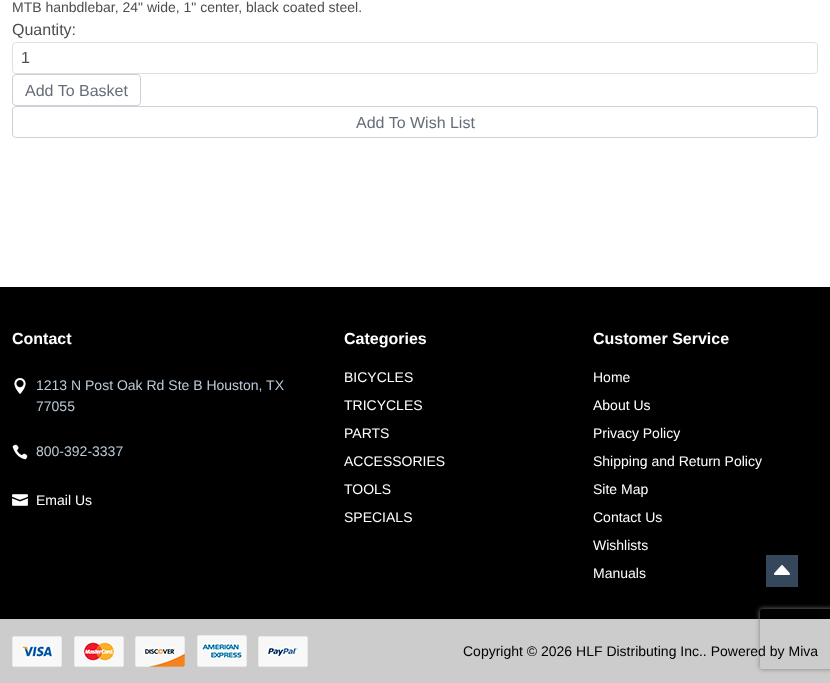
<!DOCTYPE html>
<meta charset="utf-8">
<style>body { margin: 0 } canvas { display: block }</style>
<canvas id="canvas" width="830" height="683"></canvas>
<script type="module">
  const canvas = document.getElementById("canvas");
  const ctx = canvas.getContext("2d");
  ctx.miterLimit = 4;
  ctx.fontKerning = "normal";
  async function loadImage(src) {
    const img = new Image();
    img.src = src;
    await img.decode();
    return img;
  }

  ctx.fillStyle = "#ffffff";
  ctx.fillRect(0, 0, 830, 683);
  ctx.font = "14px Liberation Sans";
  ctx.fillStyle = "#4d4d4d";
  ctx.fillText("MTB hanbdlebar, 24\" wide, 1\" center, black coated steel.", 12, 12);
  ctx.font = "16px Liberation Sans";
  ctx.fillText("Quantity:", 12, 35);
  ctx.beginPath();
  ctx.roundRect(12.5, 42.5, 805, 31, 3.5);
  ctx.strokeStyle = "#dfe1e1";
  ctx.stroke();
  ctx.fillText("1", 21, 63);
  ctx.beginPath();
  ctx.roundRect(12.5, 74.5, 128, 31, 3.5);
  ctx.strokeStyle = "#ccd1d9";
  ctx.stroke();
  ctx.fillStyle = "#656d78";
  ctx.fillText("Add To Basket", 25, 96);
  ctx.beginPath();
  ctx.roundRect(12.5, 106.5, 805, 31, 3.5);
  ctx.stroke();
  ctx.fillText("Add To Wish List", 356, 128);
  ctx.fillStyle = "#000000";
  ctx.fillRect(0, 287, 830, 332);
  ctx.font = "bold 16px Liberation Sans";
  ctx.fillStyle = "#ffffff";
  ctx.fillText("Contact", 12, 344);
  ctx.drawImage(await loadImage("img1.png"), 14, 378, 12, 16);
  ctx.font = "14px Liberation Sans";
  ctx.fillStyle = "#bccbda";
  ctx.fillText("1213 N Post Oak Rd Ste B Houston, TX", 36, 390);
  ctx.fillText("77055", 36, 411);
  ctx.drawImage(await loadImage("img2.png"), 12, 444, 16, 16);
  ctx.fillText("800-392-3337", 36, 456);
  ctx.drawImage(await loadImage("img3.png"), 12, 494, 16, 12);
  ctx.fillStyle = "#ffffff";
  ctx.fillText("Email Us", 36, 505);
  ctx.font = "bold 16px Liberation Sans";
  ctx.fillText("Categories", 344, 344);
  ctx.font = "14px Liberation Sans";
  ctx.fillText("BICYCLES", 344, 382);
  ctx.fillText("TRICYCLES", 344, 410);
  ctx.fillText("PARTS", 344, 438);
  ctx.fillText("ACCESSORIES", 344, 466);
  ctx.fillText("TOOLS", 344, 494);
  ctx.fillText("SPECIALS", 344, 522);
  ctx.font = "bold 16px Liberation Sans";
  ctx.fillText("Customer Service", 593, 344);
  ctx.font = "14px Liberation Sans";
  ctx.fillText("Home", 593, 382);
  ctx.fillText("About Us", 593, 410);
  ctx.fillText("Privacy Policy", 593, 438);
  ctx.fillText("Shipping and Return Policy", 593, 466);
  ctx.fillText("Site Map", 593, 494);
  ctx.fillText("Contact Us", 593, 522);
  ctx.fillText("Wishlists", 593, 550);
  ctx.fillText("Manuals", 593, 578);
  ctx.fillStyle = "#35475b";
  ctx.fillRect(766, 555, 32, 32);
  ctx.drawImage(await loadImage("img4.png"), 774, 565, 16, 10);
  ctx.fillStyle = "#cccccc";
  ctx.fillRect(0, 619, 830, 64);
  ctx.save();
  ctx.beginPath();
  ctx.moveTo(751, 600);
  ctx.lineTo(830, 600);
  ctx.lineTo(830, 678);
  ctx.lineTo(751, 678);
  ctx.closePath();
  ctx.moveTo(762, 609);
  ctx.lineTo(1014, 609);
  ctx.bezierCurveTo(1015, 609, 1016, 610, 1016, 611);
  ctx.lineTo(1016, 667);
  ctx.bezierCurveTo(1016, 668, 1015, 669, 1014, 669);
  ctx.lineTo(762, 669);
  ctx.bezierCurveTo(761, 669, 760, 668, 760, 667);
  ctx.lineTo(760, 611);
  ctx.bezierCurveTo(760, 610, 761, 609, 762, 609);
  ctx.closePath();
  ctx.clip("evenodd");
  ctx.fillStyle = "#808080";
  ctx.filter = "blur(2.5px)";
  ctx.beginPath();
  ctx.roundRect(760, 609, 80, 60, 2);
  ctx.fill();
  ctx.filter = "none";
  ctx.restore();
  ctx.drawImage(await loadImage("img5.png"), 12, 635, 296, 32);
  ctx.fillStyle = "#000000";
  ctx.fillText("Copyright © 2026 HLF Distributing Inc.. Powered by Miva", 463, 656);
</script>
